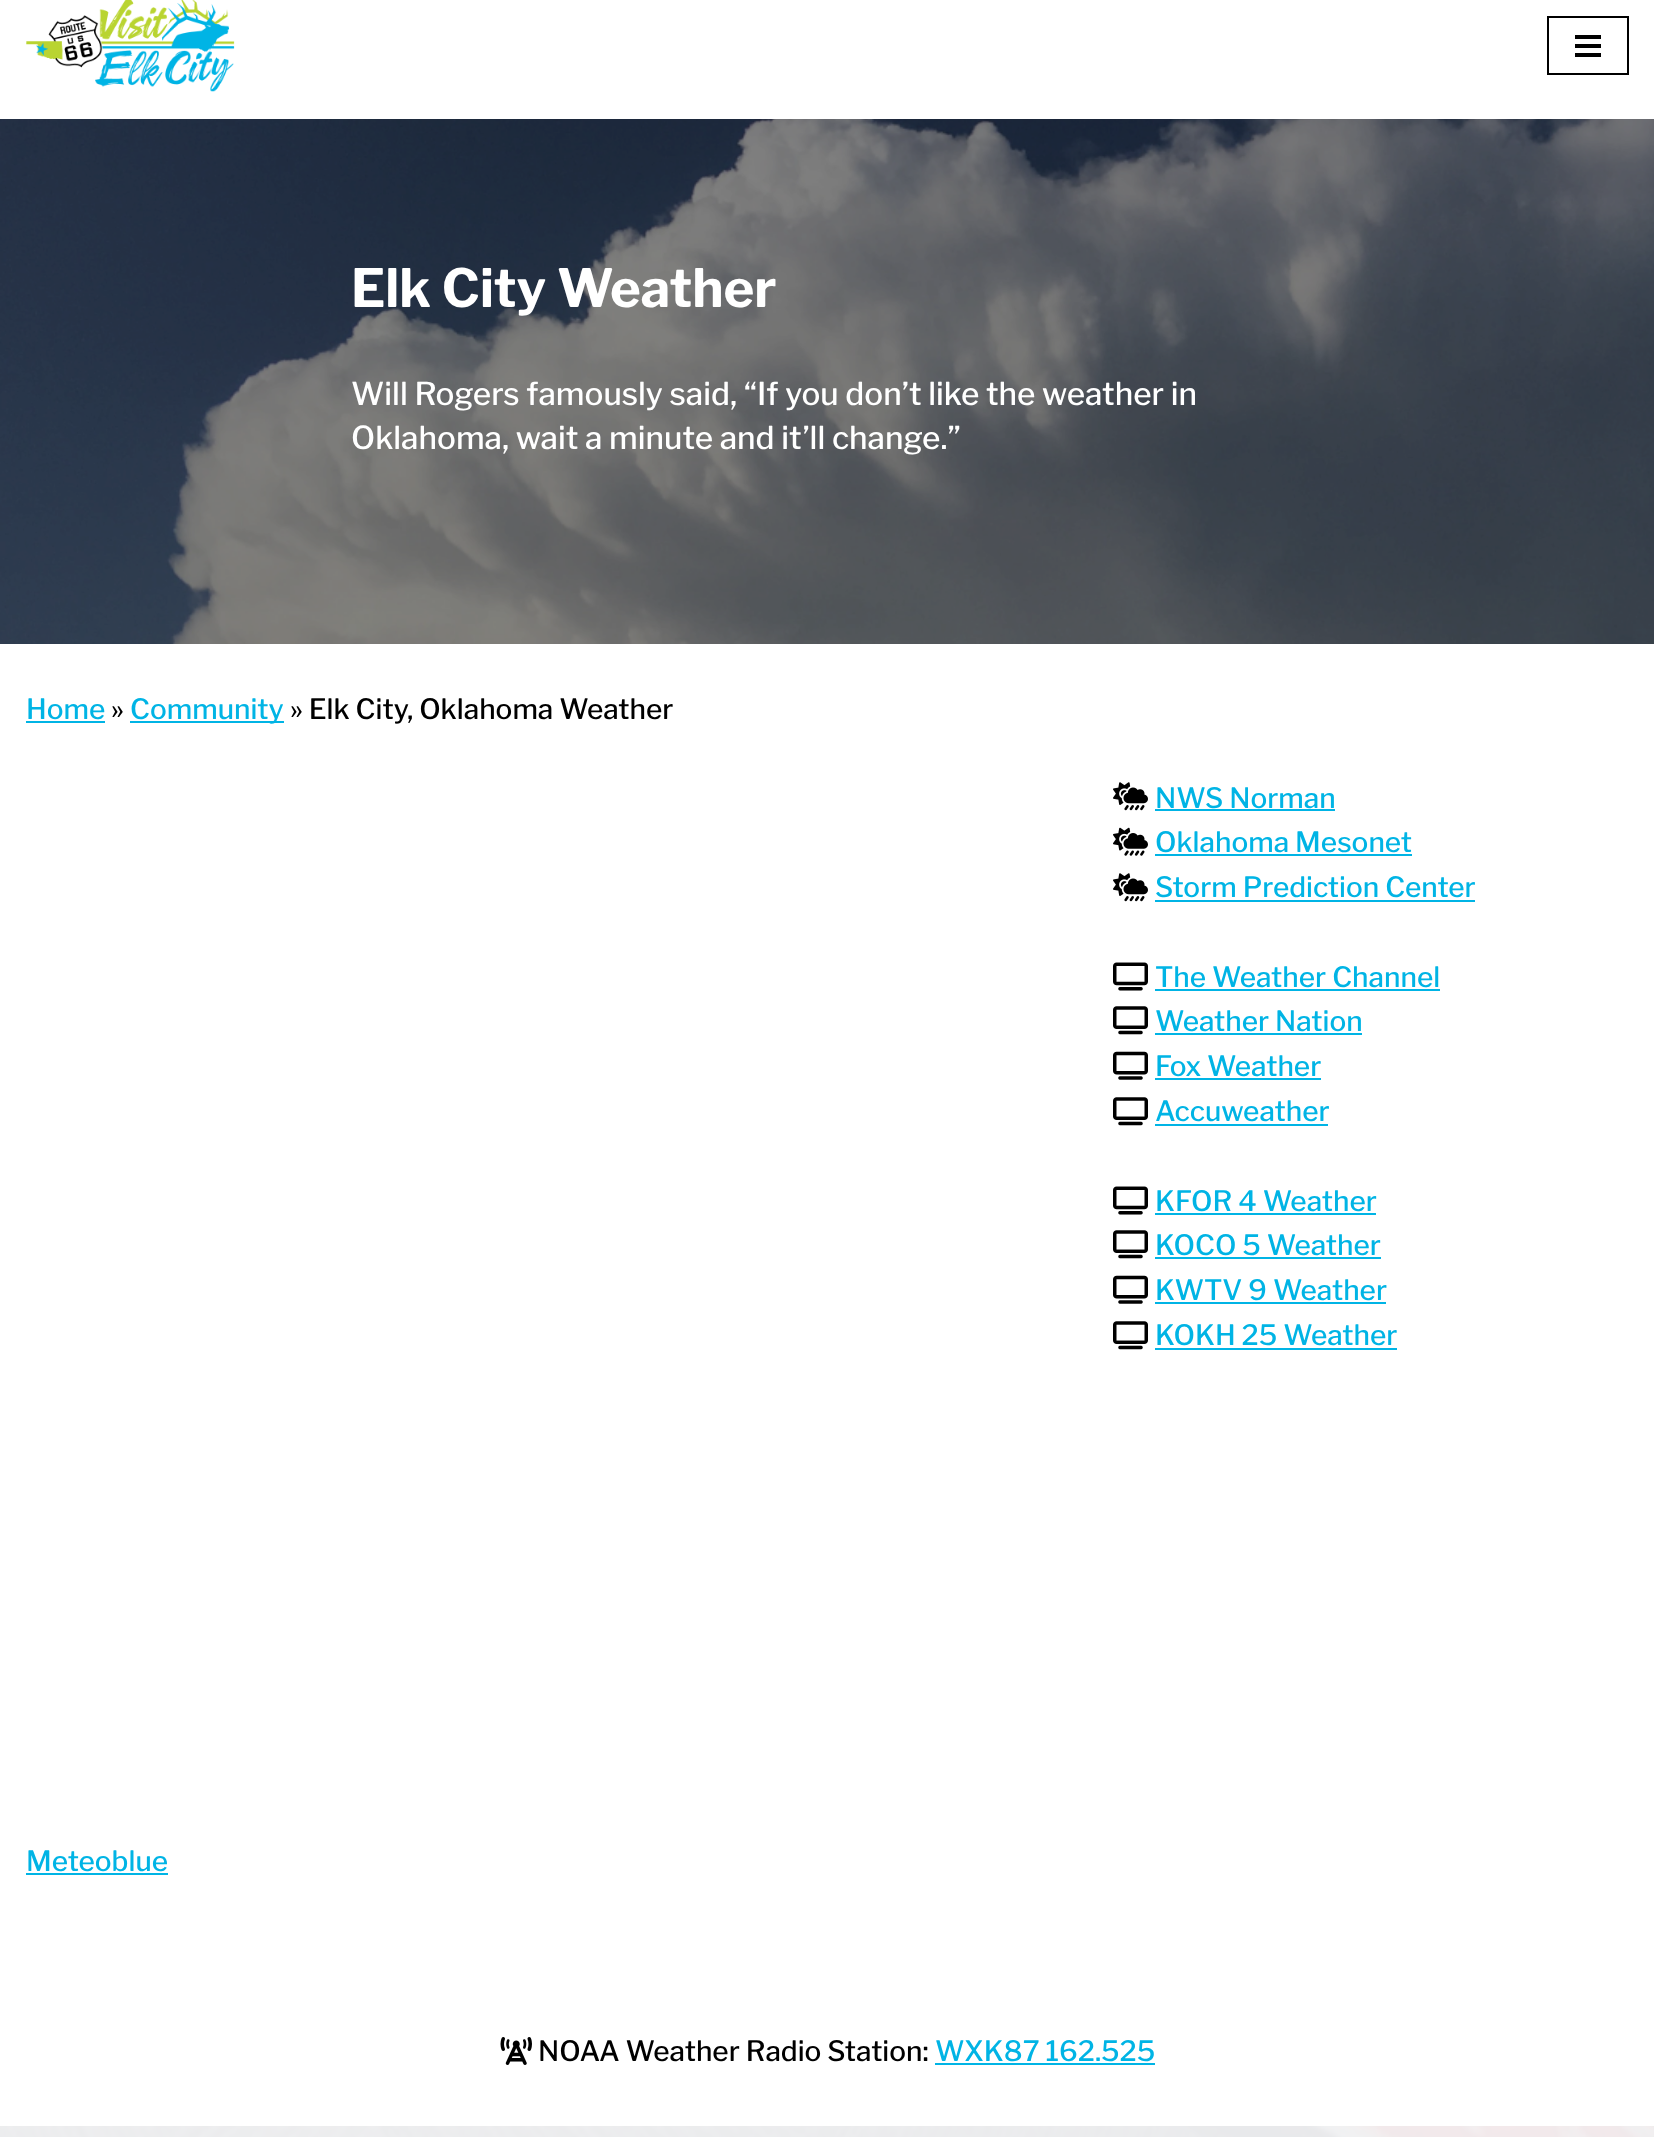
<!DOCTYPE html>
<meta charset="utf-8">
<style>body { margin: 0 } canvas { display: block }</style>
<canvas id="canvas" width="1654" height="2137"></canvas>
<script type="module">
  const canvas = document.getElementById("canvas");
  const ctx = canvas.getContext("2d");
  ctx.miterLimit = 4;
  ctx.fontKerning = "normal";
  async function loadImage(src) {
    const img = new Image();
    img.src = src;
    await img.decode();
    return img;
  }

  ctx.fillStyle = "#ffffff";
  ctx.fillRect(0, 0, 1654, 2137);
  ctx.drawImage(await loadImage("img1.png"), 26, 0, 209, 92);
  ctx.strokeStyle = "#000000";
  ctx.lineWidth = 2;
  ctx.strokeRect(1548, 17, 80, 57);
  ctx.fillStyle = "#000000";
  ctx.fillRect(1575, 35, 26, 4);
  ctx.fillRect(1575, 44, 26, 4);
  ctx.fillRect(1575, 53, 26, 4);
  ctx.drawImage(await loadImage("img2.png"), 0, 119, 1654, 525);
  ctx.font = "bold 52.5px Libre Franklin";
  ctx.fillStyle = "#ffffff";
  ctx.fillText("Elk City Weather", 351, 307);
  ctx.font = "500 31.5px Libre Franklin";
  ctx.fillText("Will Rogers famously said, “If you don’t like the weather in", 351, 405);
  ctx.fillText("Oklahoma, wait a minute and it’ll change.”", 351, 449);
  ctx.font = "500 28px Libre Franklin";
  ctx.fillStyle = "#00b4e5";
  ctx.fillText("Home", 26, 719);
  ctx.fillRect(26, 721, 79, 2);
  ctx.fillStyle = "#000000";
  ctx.fillText("»", 111, 719);
  ctx.fillStyle = "#00b4e5";
  ctx.fillRect(130, 721, 154, 2);
  ctx.fillText("Community", 130, 719);
  ctx.fillStyle = "#000000";
  ctx.fillText("» Elk City, Oklahoma Weather", 290, 719);
  ctx.drawImage(await loadImage("img3.png"), 1113, 782, 35, 29);
  ctx.fillStyle = "#00b4e5";
  ctx.fillText("NWS Norman", 1155, 808);
  ctx.fillRect(1155, 809, 180, 2);
  ctx.drawImage(await loadImage("img4.png"), 1113, 827, 35, 29);
  ctx.fillText("Oklahoma Mesonet", 1155, 852);
  ctx.fillRect(1155, 854, 257, 2);
  ctx.drawImage(await loadImage("img3.png"), 1113, 873, 35, 29);
  ctx.fillText("Storm Prediction Center", 1155, 897);
  ctx.fillRect(1155, 900, 320, 2);
  ctx.drawImage(await loadImage("img5.png"), 1113, 962, 35, 29);
  ctx.fillText("The Weather Channel", 1155, 987);
  ctx.fillRect(1155, 989, 285, 2);
  ctx.drawImage(await loadImage("img6.png"), 1113, 1006, 35, 29);
  ctx.fillText("Weather Nation", 1155, 1031);
  ctx.fillRect(1155, 1033, 207, 2);
  ctx.drawImage(await loadImage("img7.png"), 1113, 1051, 35, 29);
  ctx.fillText("Fox Weather", 1155, 1076);
  ctx.fillRect(1155, 1078, 166, 2);
  ctx.drawImage(await loadImage("img6.png"), 1113, 1097, 35, 29);
  ctx.fillText("Accuweather", 1155, 1121);
  ctx.fillRect(1155, 1124, 173, 2);
  ctx.drawImage(await loadImage("img5.png"), 1113, 1186, 35, 29);
  ctx.fillText("KFOR 4 Weather", 1155, 1211);
  ctx.fillRect(1155, 1213, 221, 2);
  ctx.drawImage(await loadImage("img6.png"), 1113, 1230, 35, 29);
  ctx.fillText("KOCO 5 Weather", 1155, 1255);
  ctx.fillRect(1155, 1257, 226, 2);
  ctx.drawImage(await loadImage("img7.png"), 1113, 1275, 35, 29);
  ctx.fillText("KWTV 9 Weather", 1155, 1300);
  ctx.fillRect(1155, 1302, 231, 2);
  ctx.drawImage(await loadImage("img6.png"), 1113, 1321, 35, 29);
  ctx.fillText("KOKH 25 Weather", 1155, 1345);
  ctx.fillRect(1155, 1348, 242, 2);
  ctx.fillText("Meteoblue", 26, 1871);
  ctx.fillRect(26, 1873, 142, 2);
  ctx.drawImage(await loadImage("img8.png"), 500, 2037, 32, 28);
  ctx.fillStyle = "#000000";
  ctx.fillText("NOAA Weather Radio Station:", 538, 2061);
  ctx.fillStyle = "#00b4e5";
  ctx.fillText("WXK87 162.525", 935, 2061);
  ctx.fillRect(935, 2063, 220, 2);
  ctx.drawImage(await loadImage("img9.png"), 0, 2126, 1654, 11);
</script>
